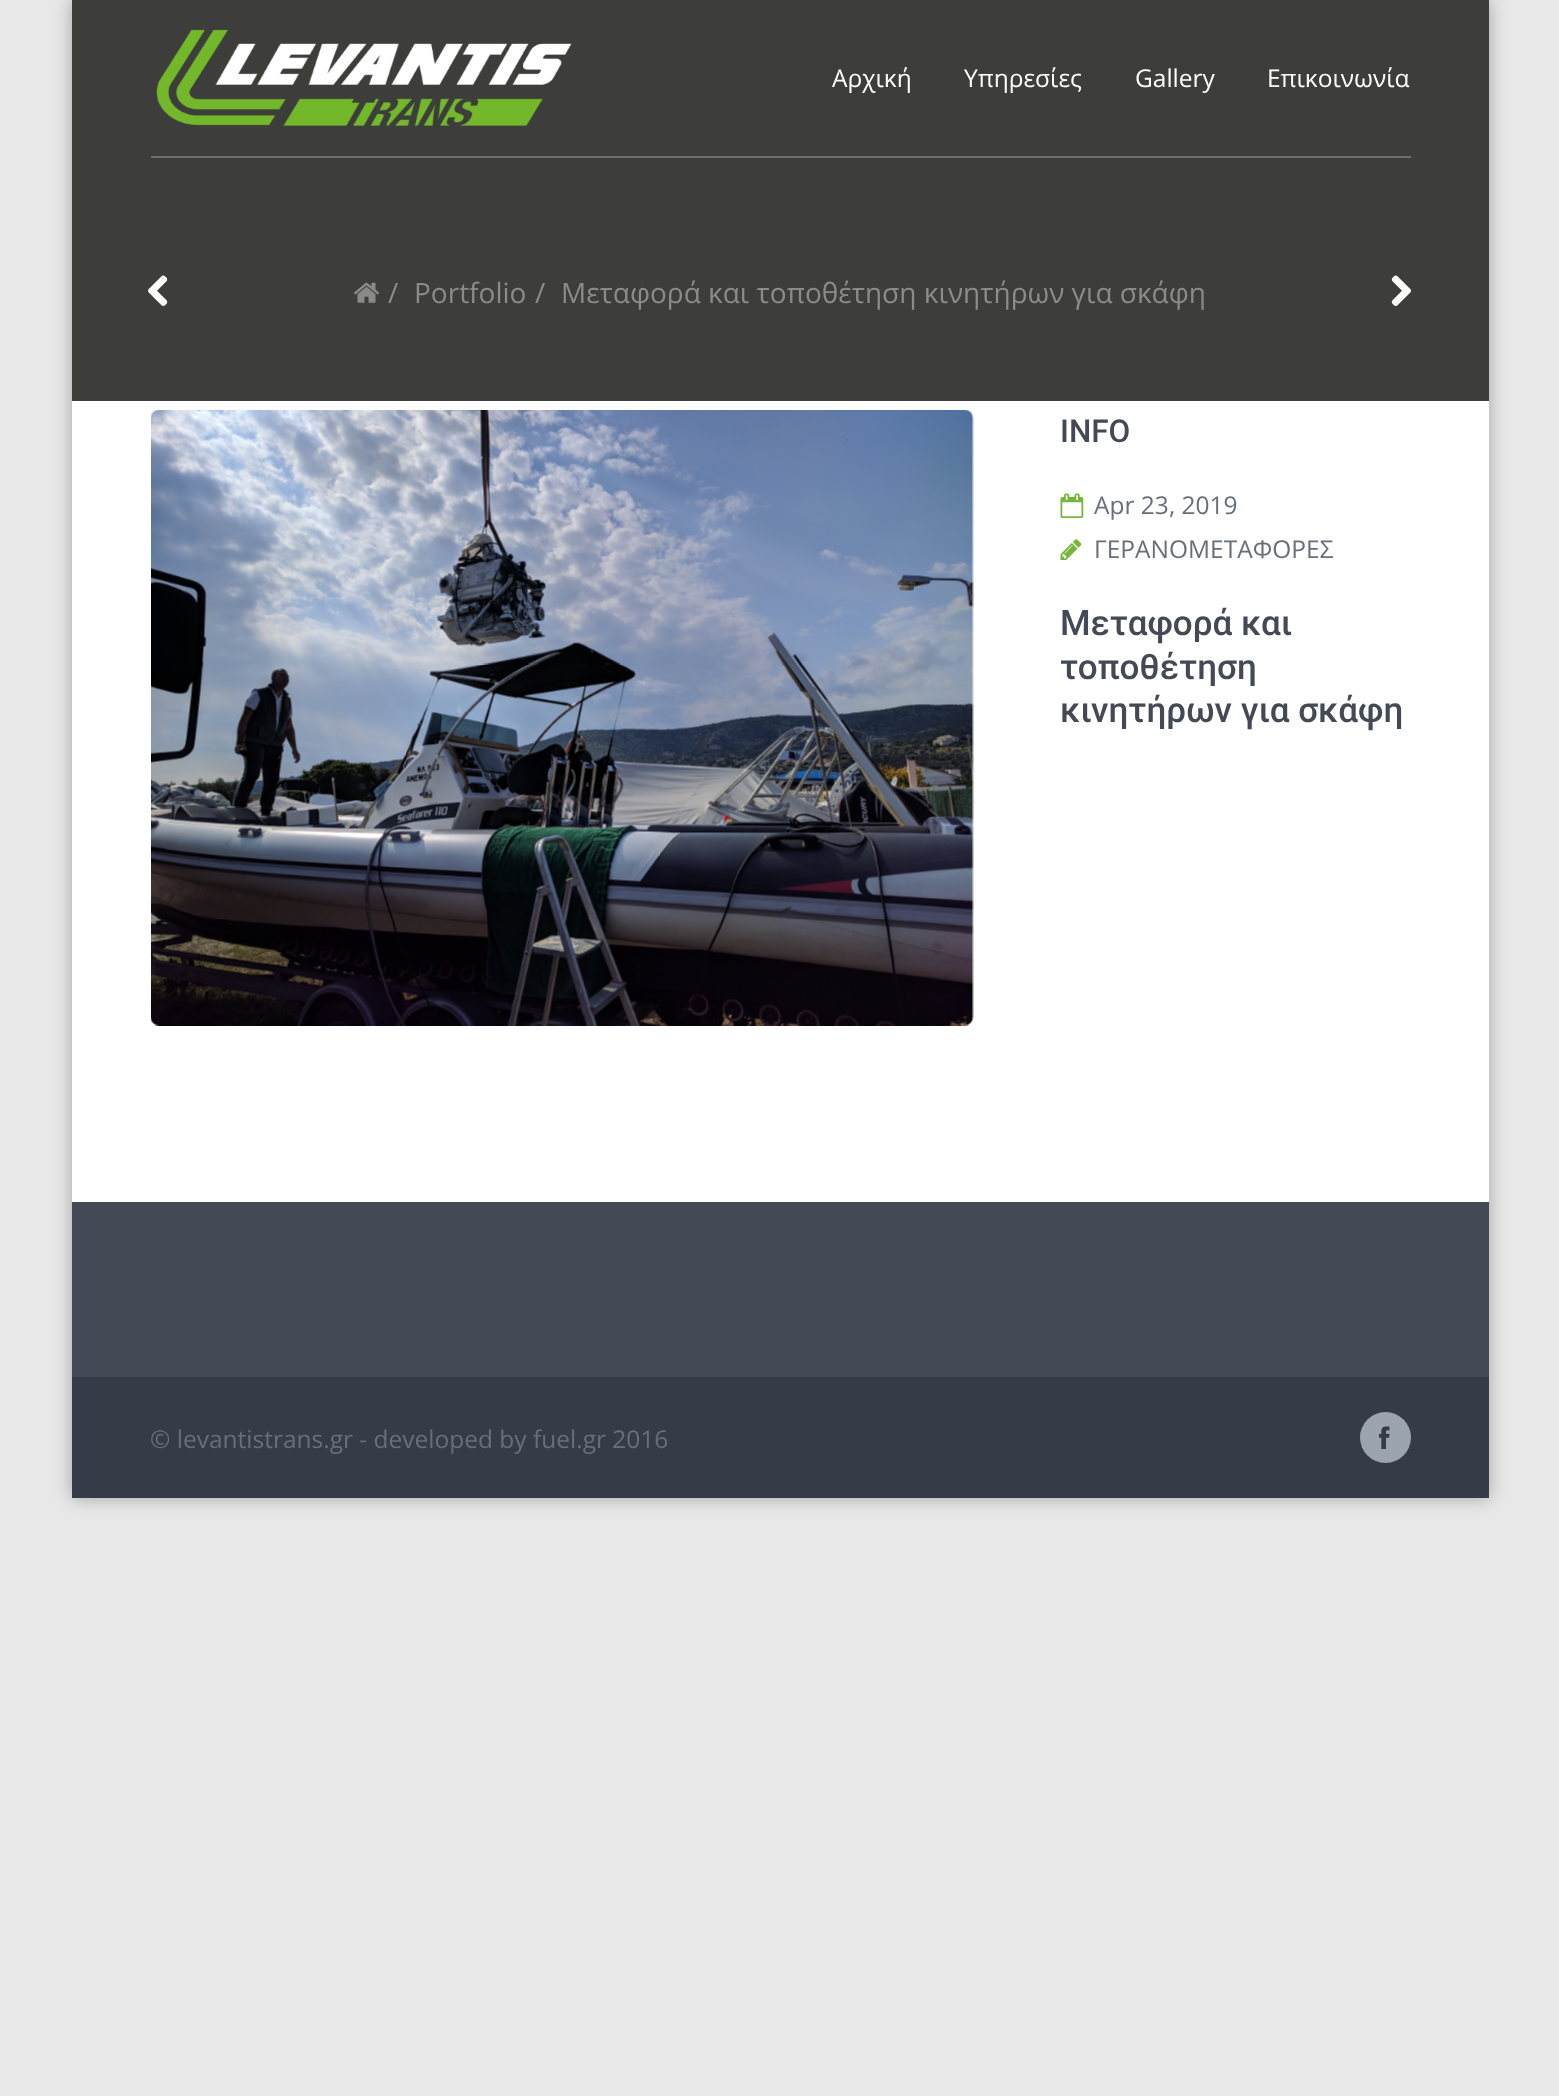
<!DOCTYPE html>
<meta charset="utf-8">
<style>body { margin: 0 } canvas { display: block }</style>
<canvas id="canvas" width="1559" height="2096"></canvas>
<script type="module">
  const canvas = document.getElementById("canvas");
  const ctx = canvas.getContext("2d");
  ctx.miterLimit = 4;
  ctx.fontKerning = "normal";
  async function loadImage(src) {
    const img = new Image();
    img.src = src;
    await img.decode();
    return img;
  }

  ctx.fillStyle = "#e8e8e8";
  ctx.fillRect(0, 0, 1559, 2096);
  ctx.fillStyle = "rgba(0, 0, 0, 0.3)";
  ctx.filter = "blur(9px)";
  ctx.beginPath();
  ctx.rect(72, 0, 1417, 1498);
  ctx.fill();
  ctx.filter = "none";
  ctx.fillStyle = "#3d3d3c";
  ctx.fillRect(72, 0, 1417, 401);
  ctx.fillStyle = "#6e6e6d";
  ctx.fillRect(151, 156, 1260, 2);
  ctx.drawImage(await loadImage("img1.png"), 156, 29, 416, 97);
  ctx.font = "24.5px Open Sans";
  ctx.fillStyle = "#ffffff";
  ctx.fillText("Αρχική", 832, 87);
  ctx.fillText("Υπηρεσίες", 964, 87);
  ctx.fillText("Gallery", 1135, 87);
  ctx.fillText("Επικοινωνία", 1267, 87);
  ctx.drawImage(await loadImage("img2.png"), 148, 275, 20, 31);
  ctx.drawImage(await loadImage("img3.png"), 1391, 275, 20, 31);
  ctx.drawImage(await loadImage("img4.png"), 354, 282, 25, 21);
  ctx.font = "28px Open Sans";
  ctx.fillStyle = "#8b8b8a";
  ctx.fillText("/", 388, 303);
  ctx.fillText("Portfolio", 414, 303);
  ctx.fillText("/", 535, 303);
  ctx.fillText("Μεταφορά και τοποθέτηση κινητήρων για σκάφη", 561, 303);
  ctx.fillStyle = "#ffffff";
  ctx.fillRect(72, 401, 1417, 801);
  ctx.drawImage(await loadImage("img5.png"), 151, 410, 823, 616);
  ctx.font = "500 31.5px Roboto";
  ctx.fillStyle = "#434955";
  ctx.fillText("INFO", 1060, 442);
  ctx.drawImage(await loadImage("img6.png"), 1060, 493, 24, 25);
  ctx.font = "24.5px Open Sans";
  ctx.fillStyle = "#676f7a";
  ctx.fillText("Apr 23, 2019", 1094, 514);
  ctx.drawImage(await loadImage("img7.png"), 1060, 539, 22, 21);
  ctx.fillText("ΓΕΡΑΝΟΜΕΤΑΦΟΡΕΣ", 1094, 558);
  ctx.font = "500 35px Roboto";
  ctx.fillStyle = "#434955";
  ctx.fillText("Μεταφορά και", 1060, 635);
  ctx.fillText("τοποθέτηση", 1060, 679);
  ctx.fillText("κινητήρων για σκάφη", 1060, 722);
  ctx.fillRect(72, 1202, 1417, 175);
  ctx.fillStyle = "#353b47";
  ctx.fillRect(72, 1377, 1417, 121);
  ctx.font = "24.5px Open Sans";
  ctx.fillStyle = "#676f7a";
  ctx.fillText("© levantistrans.gr - developed by fuel.gr 2016", 150, 1448);
  ctx.fillStyle = "#9ca4af";
  ctx.beginPath();
  ctx.arc(1385.5, 1437.5, 25.5, 0, Math.PI * 2);
  ctx.fill();
  ctx.drawImage(await loadImage("img8.png"), 1379, 1426, 11, 23);
</script>
